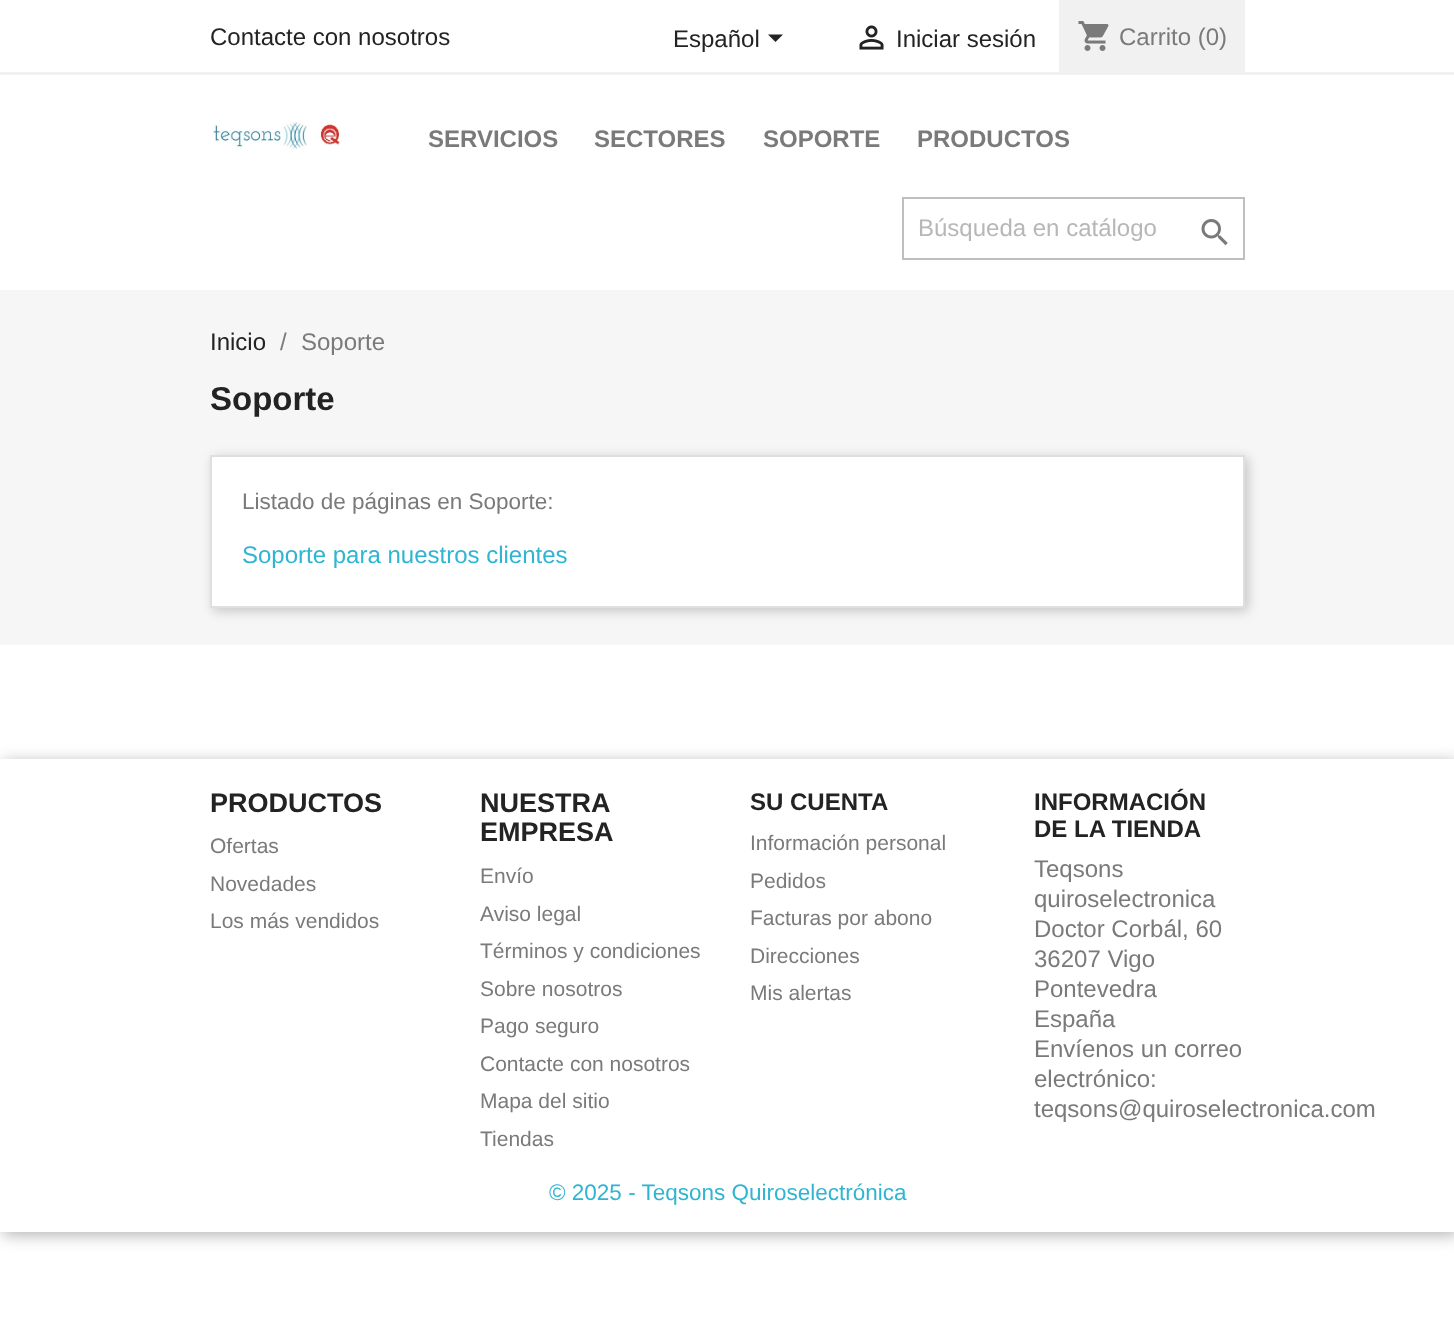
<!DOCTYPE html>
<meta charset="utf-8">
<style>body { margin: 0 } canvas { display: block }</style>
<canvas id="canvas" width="1454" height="1343"></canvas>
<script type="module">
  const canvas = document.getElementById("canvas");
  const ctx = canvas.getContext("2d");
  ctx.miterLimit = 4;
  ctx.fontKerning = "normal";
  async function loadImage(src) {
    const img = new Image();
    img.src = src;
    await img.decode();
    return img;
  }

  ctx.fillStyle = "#ffffff";
  ctx.fillRect(0, 0, 1454, 1343);
  ctx.fillStyle = "#f1f1f1";
  ctx.fillRect(0, 72, 1454, 3);
  ctx.font = "24px Liberation Sans";
  ctx.fillStyle = "#232323";
  ctx.fillText("Contacte con nosotros", 210, 45);
  ctx.fillText("Español", 673, 47);
  ctx.beginPath();
  ctx.moveTo(768, 34.5);
  ctx.lineTo(783, 34.5);
  ctx.lineTo(775.5, 42);
  ctx.closePath();
  ctx.fill();
  ctx.drawImage(await loadImage("img1.png"), 859, 25, 25, 25);
  ctx.fillText("Iniciar sesión", 896, 47);
  ctx.fillStyle = "#f1f1f1";
  ctx.fillRect(1059, 0, 186, 72);
  ctx.drawImage(await loadImage("img2.png"), 1078, 21, 31, 30);
  ctx.fillStyle = "#7a7a7a";
  ctx.fillText("Carrito (0)", 1119, 45);
  ctx.drawImage(await loadImage("img3.png"), 213, 121, 128, 29);
  ctx.font = "bold 24px Liberation Sans";
  ctx.fillText("SERVICIOS", 428, 147);
  ctx.fillText("SECTORES", 594, 147);
  ctx.fillText("SOPORTE", 763, 147);
  ctx.fillText("PRODUCTOS", 917, 147);
  ctx.strokeStyle = "#bfbfbf";
  ctx.lineWidth = 2;
  ctx.strokeRect(903, 198, 341, 61);
  ctx.font = "24px Liberation Sans";
  ctx.fillStyle = "#b7b7b7";
  ctx.fillText("Búsqueda en catálogo", 918, 236);
  ctx.drawImage(await loadImage("img4.png"), 1201, 219, 27, 27);
  ctx.fillStyle = "#f6f6f6";
  ctx.fillRect(0, 290, 1454, 355);
  ctx.fillStyle = "#232323";
  ctx.fillText("Inicio", 210, 350);
  ctx.fillStyle = "#7a7a7a";
  ctx.fillText("/", 280, 350);
  ctx.fillText("Soporte", 301, 350);
  ctx.font = "bold 33px Liberation Sans";
  ctx.fillStyle = "#232323";
  ctx.fillText("Soporte", 210, 410);
  ctx.fillStyle = "rgba(0, 0, 0, 0.2)";
  ctx.filter = "blur(6px)";
  ctx.beginPath();
  ctx.rect(213, 458, 1035, 153);
  ctx.fill();
  ctx.filter = "none";
  ctx.fillStyle = "#ffffff";
  ctx.beginPath();
  ctx.rect(211, 456, 1033, 151);
  ctx.fill();
  ctx.strokeStyle = "#dfdfdf";
  ctx.stroke();
  ctx.font = "22.5px Liberation Sans";
  ctx.fillStyle = "#7a7a7a";
  ctx.fillText("Listado de páginas en Soporte:", 242, 509);
  ctx.font = "24px Liberation Sans";
  ctx.fillStyle = "#2fb5d2";
  ctx.fillText("Soporte para nuestros clientes", 242, 563);
  ctx.save();
  ctx.beginPath();
  ctx.moveTo(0, 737);
  ctx.lineTo(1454, 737);
  ctx.lineTo(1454, 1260);
  ctx.lineTo(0, 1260);
  ctx.closePath();
  ctx.moveTo(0, 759);
  ctx.lineTo(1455, 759);
  ctx.lineTo(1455, 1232);
  ctx.lineTo(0, 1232);
  ctx.closePath();
  ctx.clip("evenodd");
  ctx.fillStyle = "rgba(0, 0, 0, 0.3)";
  ctx.filter = "blur(8px)";
  ctx.beginPath();
  ctx.rect(3, 762, 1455, 473);
  ctx.fill();
  ctx.filter = "none";
  ctx.restore();
  ctx.font = "bold 27px Liberation Sans";
  ctx.fillStyle = "#232323";
  ctx.fillText("PRODUCTOS", 210, 812);
  ctx.font = "21px Liberation Sans";
  ctx.fillStyle = "#7a7a7a";
  ctx.fillText("Ofertas", 210, 853);
  ctx.fillText("Novedades", 210, 891);
  ctx.fillText("Los más vendidos", 210, 928);
  ctx.font = "bold 27px Liberation Sans";
  ctx.fillStyle = "#232323";
  ctx.fillText("NUESTRA", 480, 812);
  ctx.fillText("EMPRESA", 480, 841);
  ctx.font = "21px Liberation Sans";
  ctx.fillStyle = "#7a7a7a";
  ctx.fillText("Envío", 480, 883);
  ctx.fillText("Aviso legal", 480, 921);
  ctx.fillText("Términos y condiciones", 480, 958);
  ctx.fillText("Sobre nosotros", 480, 996);
  ctx.fillText("Pago seguro", 480, 1033);
  ctx.fillText("Contacte con nosotros", 480, 1071);
  ctx.fillText("Mapa del sitio", 480, 1108);
  ctx.fillText("Tiendas", 480, 1146);
  ctx.font = "bold 24px Liberation Sans";
  ctx.fillStyle = "#232323";
  ctx.fillText("SU CUENTA", 750, 810);
  ctx.font = "21px Liberation Sans";
  ctx.fillStyle = "#7a7a7a";
  ctx.fillText("Información personal", 750, 850);
  ctx.fillText("Pedidos", 750, 888);
  ctx.fillText("Facturas por abono", 750, 925);
  ctx.fillText("Direcciones", 750, 963);
  ctx.fillText("Mis alertas", 750, 1000);
  ctx.font = "bold 24px Liberation Sans";
  ctx.fillStyle = "#232323";
  ctx.fillText("INFORMACIÓN", 1034, 810);
  ctx.fillText("DE LA TIENDA", 1034, 837);
  ctx.font = "24px Liberation Sans";
  ctx.fillStyle = "#7a7a7a";
  ctx.fillText("Teqsons", 1034, 877);
  ctx.fillText("quiroselectronica", 1034, 907);
  ctx.fillText("Doctor Corbál, 60", 1034, 937);
  ctx.fillText("36207 Vigo", 1034, 967);
  ctx.fillText("Pontevedra", 1034, 997);
  ctx.fillText("España", 1034, 1027);
  ctx.fillText("Envíenos un correo", 1034, 1057);
  ctx.fillText("electrónico:", 1034, 1087);
  ctx.fillText("teqsons@quiroselectronica.com", 1034, 1117);
  ctx.font = "22.5px Liberation Sans";
  ctx.fillStyle = "#2fb5d2";
  ctx.fillText("© 2025 - Teqsons Quiroselectrónica", 549, 1200);
</script>
